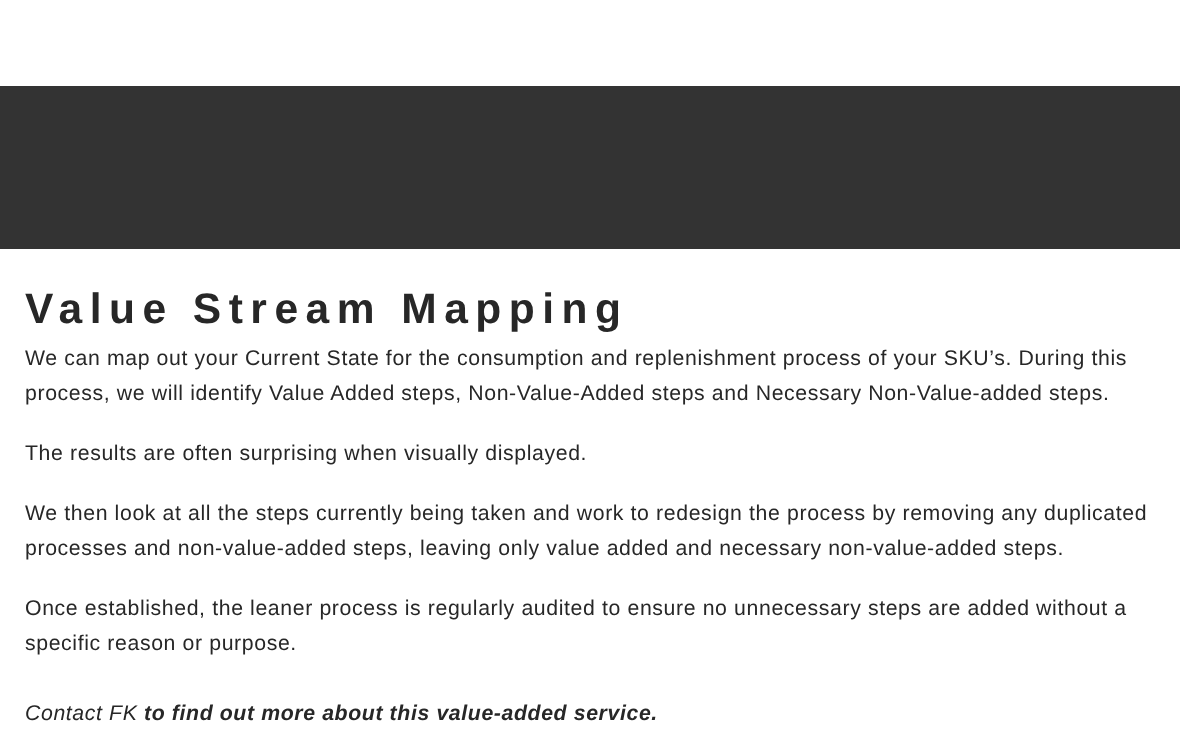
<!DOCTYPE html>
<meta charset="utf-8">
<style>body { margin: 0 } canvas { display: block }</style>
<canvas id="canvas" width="1180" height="744"></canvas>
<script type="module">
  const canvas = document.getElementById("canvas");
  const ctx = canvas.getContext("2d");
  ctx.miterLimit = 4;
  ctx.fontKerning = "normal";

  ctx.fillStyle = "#333333";
  ctx.fillRect(0, 0, 1180, 744);
  ctx.fillStyle = "#ffffff";
  ctx.fillRect(0, 0, 1180, 86);
  ctx.fillRect(0, 249, 1180, 495);
  ctx.letterSpacing = "7.5px";
  ctx.font = "bold 42.5px Liberation Sans";
  ctx.fillStyle = "#272727";
  ctx.fillText("Value Stream Mapping", 25, 323);
  ctx.letterSpacing = "0.62px";
  ctx.font = "21.25px Liberation Sans";
  ctx.fillText("We can map out your Current State for the consumption and replenishment process of your SKU’s. During this", 25, 365);
  ctx.fillText("process, we will identify Value Added steps, Non-Value-Added steps and Necessary Non-Value-added steps.", 25, 400);
  ctx.fillText("The results are often surprising when visually displayed.", 25, 460);
  ctx.fillText("We then look at all the steps currently being taken and work to redesign the process by removing any duplicated", 25, 520);
  ctx.fillText("processes and non-value-added steps, leaving only value added and necessary non-value-added steps.", 25, 555);
  ctx.fillText("Once established, the leaner process is regularly audited to ensure no unnecessary steps are added without a", 25, 615);
  ctx.fillText("specific reason or purpose.", 25, 650);
  ctx.font = "italic 21.25px Liberation Sans";
  ctx.fillText("Contact FK", 25, 720);
  ctx.font = "italic bold 21.25px Liberation Sans";
  ctx.fillText("to find out more about this value-added service.", 144, 720);
</script>
